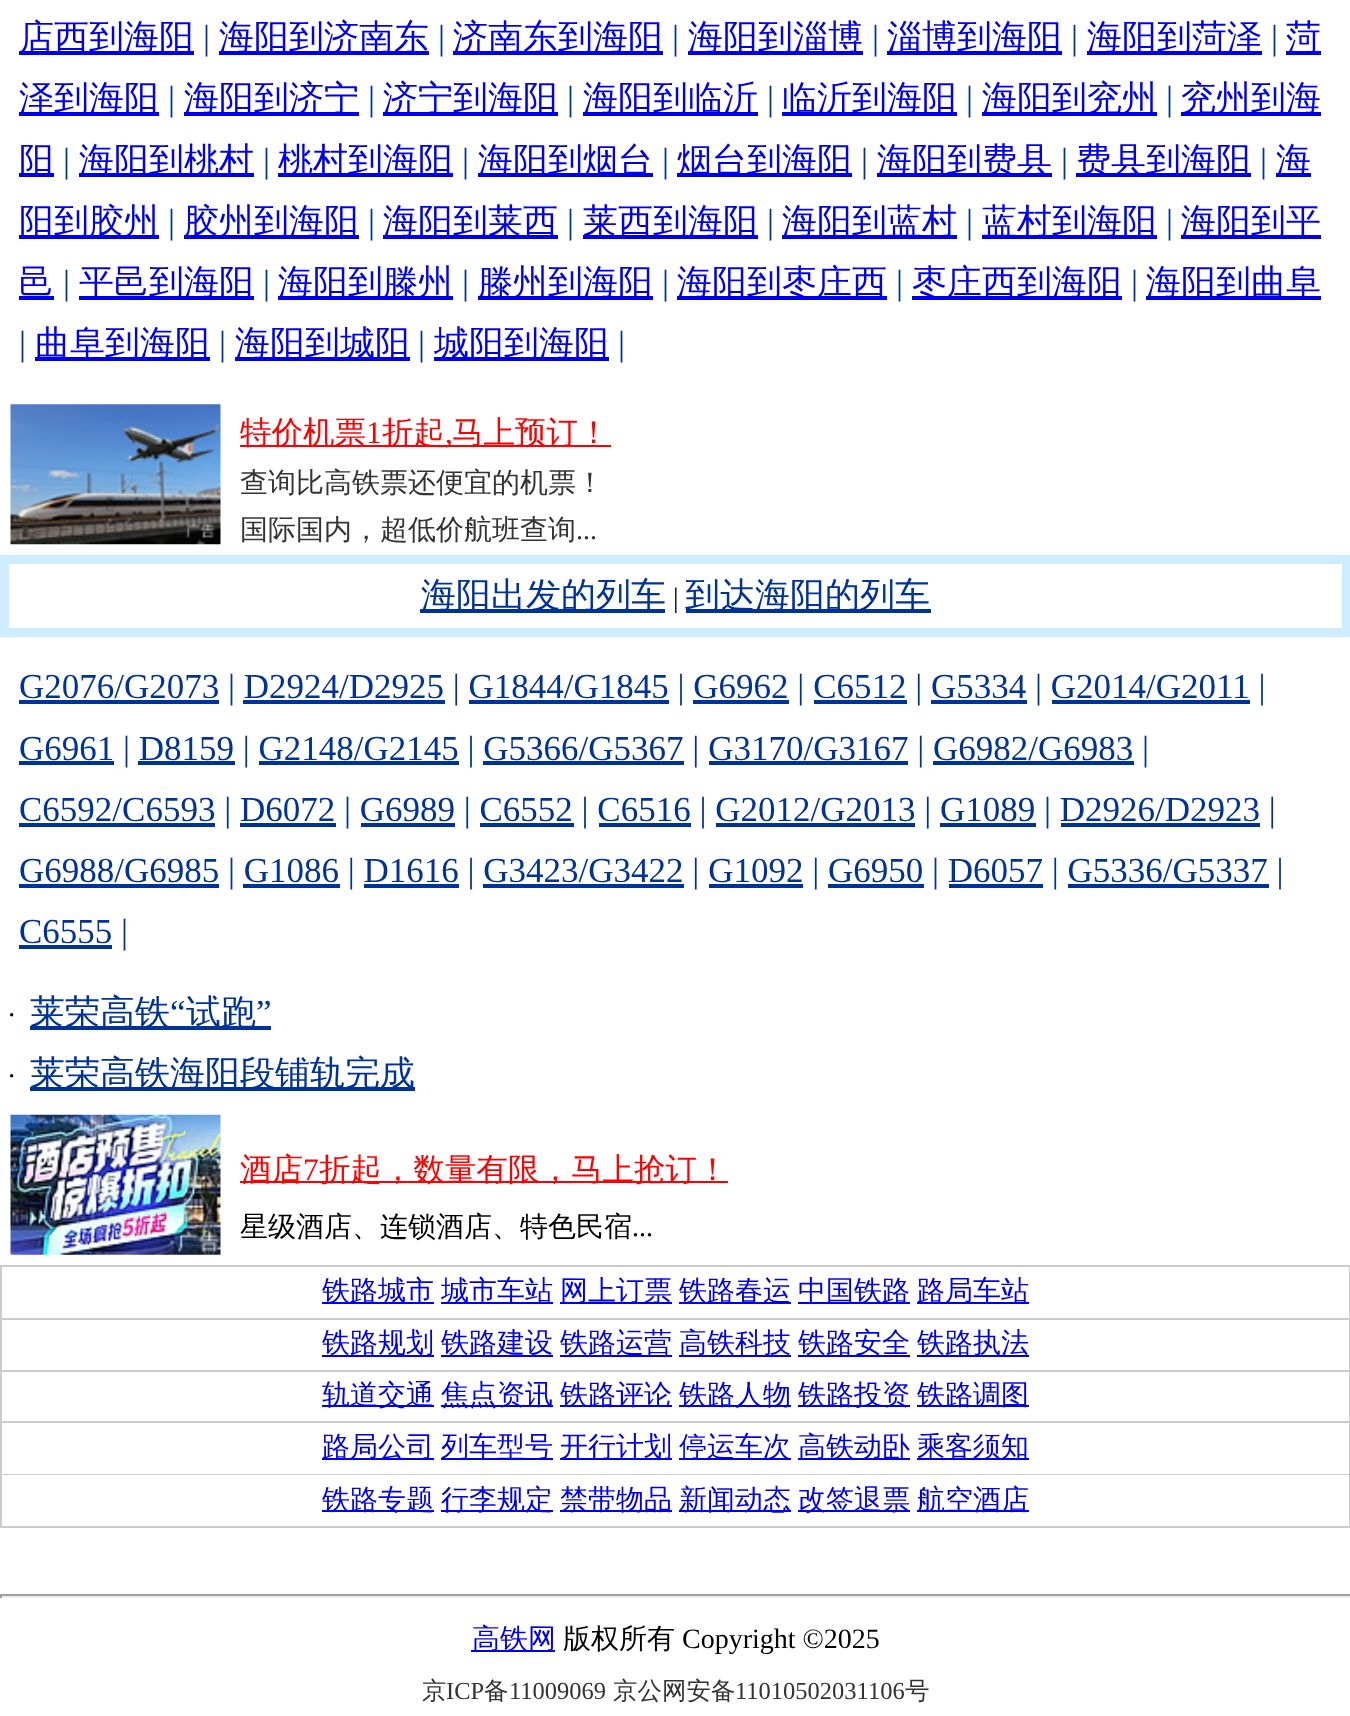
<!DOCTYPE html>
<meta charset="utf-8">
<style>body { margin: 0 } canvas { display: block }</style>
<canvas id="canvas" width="1350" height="1716"></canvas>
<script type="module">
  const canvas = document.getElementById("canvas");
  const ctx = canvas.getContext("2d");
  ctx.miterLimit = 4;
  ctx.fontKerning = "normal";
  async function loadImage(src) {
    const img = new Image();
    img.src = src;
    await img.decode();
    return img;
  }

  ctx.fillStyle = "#ffffff";
  ctx.fillRect(0, 0, 1350, 1716);
  ctx.fillStyle = "#0000ee";
  ctx.fillRect(19, 51, 175, 4);
  ctx.font = "500 35px WenQuanYi Zen Hei";
  ctx.fillText("店西到海阳", 19, 49);
  ctx.font = "35px Liberation Serif";
  ctx.fillStyle = "#003399";
  ctx.fillText("|", 203, 49);
  ctx.fillStyle = "#0000ee";
  ctx.fillRect(219, 51, 210, 4);
  ctx.font = "500 35px WenQuanYi Zen Hei";
  ctx.fillText("海阳到济南东", 219, 49);
  ctx.font = "35px Liberation Serif";
  ctx.fillStyle = "#003399";
  ctx.fillText("|", 438, 49);
  ctx.fillStyle = "#0000ee";
  ctx.fillRect(453, 51, 210, 4);
  ctx.font = "500 35px WenQuanYi Zen Hei";
  ctx.fillText("济南东到海阳", 453, 49);
  ctx.font = "35px Liberation Serif";
  ctx.fillStyle = "#003399";
  ctx.fillText("|", 672, 49);
  ctx.fillStyle = "#0000ee";
  ctx.fillRect(688, 51, 175, 4);
  ctx.font = "500 35px WenQuanYi Zen Hei";
  ctx.fillText("海阳到淄博", 688, 49);
  ctx.font = "35px Liberation Serif";
  ctx.fillStyle = "#003399";
  ctx.fillText("|", 872, 49);
  ctx.fillStyle = "#0000ee";
  ctx.fillRect(887, 51, 175, 4);
  ctx.font = "500 35px WenQuanYi Zen Hei";
  ctx.fillText("淄博到海阳", 887, 49);
  ctx.font = "35px Liberation Serif";
  ctx.fillStyle = "#003399";
  ctx.fillText("|", 1071, 49);
  ctx.fillStyle = "#0000ee";
  ctx.fillRect(1087, 51, 175, 4);
  ctx.font = "500 35px WenQuanYi Zen Hei";
  ctx.fillText("海阳到菏泽", 1087, 49);
  ctx.font = "35px Liberation Serif";
  ctx.fillStyle = "#003399";
  ctx.fillText("|", 1271, 49);
  ctx.fillStyle = "#0000ee";
  ctx.fillRect(1286, 51, 35, 4);
  ctx.font = "500 35px WenQuanYi Zen Hei";
  ctx.fillText("菏", 1286, 49);
  ctx.fillRect(19, 112, 140, 4);
  ctx.fillText("泽到海阳", 19, 110);
  ctx.font = "35px Liberation Serif";
  ctx.fillStyle = "#003399";
  ctx.fillText("|", 168, 110);
  ctx.fillStyle = "#0000ee";
  ctx.fillRect(184, 112, 175, 4);
  ctx.font = "500 35px WenQuanYi Zen Hei";
  ctx.fillText("海阳到济宁", 184, 110);
  ctx.font = "35px Liberation Serif";
  ctx.fillStyle = "#003399";
  ctx.fillText("|", 368, 110);
  ctx.fillStyle = "#0000ee";
  ctx.fillRect(383, 112, 175, 4);
  ctx.font = "500 35px WenQuanYi Zen Hei";
  ctx.fillText("济宁到海阳", 383, 110);
  ctx.font = "35px Liberation Serif";
  ctx.fillStyle = "#003399";
  ctx.fillText("|", 567, 110);
  ctx.fillStyle = "#0000ee";
  ctx.fillRect(583, 112, 175, 4);
  ctx.font = "500 35px WenQuanYi Zen Hei";
  ctx.fillText("海阳到临沂", 583, 110);
  ctx.font = "35px Liberation Serif";
  ctx.fillStyle = "#003399";
  ctx.fillText("|", 767, 110);
  ctx.fillStyle = "#0000ee";
  ctx.fillRect(782, 112, 175, 4);
  ctx.font = "500 35px WenQuanYi Zen Hei";
  ctx.fillText("临沂到海阳", 782, 110);
  ctx.font = "35px Liberation Serif";
  ctx.fillStyle = "#003399";
  ctx.fillText("|", 966, 110);
  ctx.fillStyle = "#0000ee";
  ctx.fillRect(982, 112, 175, 4);
  ctx.font = "500 35px WenQuanYi Zen Hei";
  ctx.fillText("海阳到兖州", 982, 110);
  ctx.font = "35px Liberation Serif";
  ctx.fillStyle = "#003399";
  ctx.fillText("|", 1166, 110);
  ctx.fillStyle = "#0000ee";
  ctx.fillRect(1181, 112, 140, 4);
  ctx.font = "500 35px WenQuanYi Zen Hei";
  ctx.fillText("兖州到海", 1181, 110);
  ctx.fillRect(19, 173, 35, 4);
  ctx.fillText("阳", 19, 172);
  ctx.font = "35px Liberation Serif";
  ctx.fillStyle = "#003399";
  ctx.fillText("|", 63, 172);
  ctx.fillStyle = "#0000ee";
  ctx.fillRect(79, 173, 175, 4);
  ctx.font = "500 35px WenQuanYi Zen Hei";
  ctx.fillText("海阳到桃村", 79, 172);
  ctx.font = "35px Liberation Serif";
  ctx.fillStyle = "#003399";
  ctx.fillText("|", 263, 172);
  ctx.fillStyle = "#0000ee";
  ctx.fillRect(278, 173, 175, 4);
  ctx.font = "500 35px WenQuanYi Zen Hei";
  ctx.fillText("桃村到海阳", 278, 172);
  ctx.font = "35px Liberation Serif";
  ctx.fillStyle = "#003399";
  ctx.fillText("|", 462, 172);
  ctx.fillStyle = "#0000ee";
  ctx.fillRect(478, 173, 175, 4);
  ctx.font = "500 35px WenQuanYi Zen Hei";
  ctx.fillText("海阳到烟台", 478, 172);
  ctx.font = "35px Liberation Serif";
  ctx.fillStyle = "#003399";
  ctx.fillText("|", 662, 172);
  ctx.fillStyle = "#0000ee";
  ctx.fillRect(677, 173, 175, 4);
  ctx.font = "500 35px WenQuanYi Zen Hei";
  ctx.fillText("烟台到海阳", 677, 172);
  ctx.font = "35px Liberation Serif";
  ctx.fillStyle = "#003399";
  ctx.fillText("|", 861, 172);
  ctx.fillStyle = "#0000ee";
  ctx.fillRect(877, 173, 175, 4);
  ctx.font = "500 35px WenQuanYi Zen Hei";
  ctx.fillText("海阳到费县", 877, 172);
  ctx.font = "35px Liberation Serif";
  ctx.fillStyle = "#003399";
  ctx.fillText("|", 1061, 172);
  ctx.fillStyle = "#0000ee";
  ctx.fillRect(1076, 173, 175, 4);
  ctx.font = "500 35px WenQuanYi Zen Hei";
  ctx.fillText("费县到海阳", 1076, 172);
  ctx.font = "35px Liberation Serif";
  ctx.fillStyle = "#003399";
  ctx.fillText("|", 1260, 172);
  ctx.fillStyle = "#0000ee";
  ctx.fillRect(1276, 173, 35, 4);
  ctx.font = "500 35px WenQuanYi Zen Hei";
  ctx.fillText("海", 1276, 172);
  ctx.fillRect(19, 235, 140, 4);
  ctx.fillText("阳到胶州", 19, 233);
  ctx.font = "35px Liberation Serif";
  ctx.fillStyle = "#003399";
  ctx.fillText("|", 168, 233);
  ctx.fillStyle = "#0000ee";
  ctx.fillRect(184, 235, 175, 4);
  ctx.font = "500 35px WenQuanYi Zen Hei";
  ctx.fillText("胶州到海阳", 184, 233);
  ctx.font = "35px Liberation Serif";
  ctx.fillStyle = "#003399";
  ctx.fillText("|", 368, 233);
  ctx.fillStyle = "#0000ee";
  ctx.fillRect(383, 235, 175, 4);
  ctx.font = "500 35px WenQuanYi Zen Hei";
  ctx.fillText("海阳到莱西", 383, 233);
  ctx.font = "35px Liberation Serif";
  ctx.fillStyle = "#003399";
  ctx.fillText("|", 567, 233);
  ctx.fillStyle = "#0000ee";
  ctx.fillRect(583, 235, 175, 4);
  ctx.font = "500 35px WenQuanYi Zen Hei";
  ctx.fillText("莱西到海阳", 583, 233);
  ctx.font = "35px Liberation Serif";
  ctx.fillStyle = "#003399";
  ctx.fillText("|", 767, 233);
  ctx.fillStyle = "#0000ee";
  ctx.fillRect(782, 235, 175, 4);
  ctx.font = "500 35px WenQuanYi Zen Hei";
  ctx.fillText("海阳到蓝村", 782, 233);
  ctx.font = "35px Liberation Serif";
  ctx.fillStyle = "#003399";
  ctx.fillText("|", 966, 233);
  ctx.fillStyle = "#0000ee";
  ctx.fillRect(982, 235, 175, 4);
  ctx.font = "500 35px WenQuanYi Zen Hei";
  ctx.fillText("蓝村到海阳", 982, 233);
  ctx.font = "35px Liberation Serif";
  ctx.fillStyle = "#003399";
  ctx.fillText("|", 1166, 233);
  ctx.fillStyle = "#0000ee";
  ctx.fillRect(1181, 235, 140, 4);
  ctx.font = "500 35px WenQuanYi Zen Hei";
  ctx.fillText("海阳到平", 1181, 233);
  ctx.fillText("邑", 19, 294);
  ctx.fillRect(19, 296, 35, 4);
  ctx.font = "35px Liberation Serif";
  ctx.fillStyle = "#003399";
  ctx.fillText("|", 63, 294);
  ctx.fillStyle = "#0000ee";
  ctx.fillRect(79, 296, 175, 4);
  ctx.font = "500 35px WenQuanYi Zen Hei";
  ctx.fillText("平邑到海阳", 79, 294);
  ctx.font = "35px Liberation Serif";
  ctx.fillStyle = "#003399";
  ctx.fillText("|", 263, 294);
  ctx.fillStyle = "#0000ee";
  ctx.fillRect(278, 296, 175, 4);
  ctx.font = "500 35px WenQuanYi Zen Hei";
  ctx.fillText("海阳到滕州", 278, 294);
  ctx.font = "35px Liberation Serif";
  ctx.fillStyle = "#003399";
  ctx.fillText("|", 462, 294);
  ctx.fillStyle = "#0000ee";
  ctx.fillRect(478, 296, 175, 4);
  ctx.font = "500 35px WenQuanYi Zen Hei";
  ctx.fillText("滕州到海阳", 478, 294);
  ctx.font = "35px Liberation Serif";
  ctx.fillStyle = "#003399";
  ctx.fillText("|", 662, 294);
  ctx.fillStyle = "#0000ee";
  ctx.fillRect(677, 296, 210, 4);
  ctx.font = "500 35px WenQuanYi Zen Hei";
  ctx.fillText("海阳到枣庄西", 677, 294);
  ctx.font = "35px Liberation Serif";
  ctx.fillStyle = "#003399";
  ctx.fillText("|", 896, 294);
  ctx.fillStyle = "#0000ee";
  ctx.fillRect(912, 296, 210, 4);
  ctx.font = "500 35px WenQuanYi Zen Hei";
  ctx.fillText("枣庄西到海阳", 912, 294);
  ctx.font = "35px Liberation Serif";
  ctx.fillStyle = "#003399";
  ctx.fillText("|", 1131, 294);
  ctx.fillStyle = "#0000ee";
  ctx.fillRect(1146, 296, 175, 4);
  ctx.font = "500 35px WenQuanYi Zen Hei";
  ctx.fillText("海阳到曲阜", 1146, 294);
  ctx.font = "35px Liberation Serif";
  ctx.fillStyle = "#003399";
  ctx.fillText("|", 19, 355);
  ctx.fillStyle = "#0000ee";
  ctx.fillRect(35, 357, 175, 4);
  ctx.font = "500 35px WenQuanYi Zen Hei";
  ctx.fillText("曲阜到海阳", 35, 355);
  ctx.font = "35px Liberation Serif";
  ctx.fillStyle = "#003399";
  ctx.fillText("|", 219, 355);
  ctx.fillStyle = "#0000ee";
  ctx.fillRect(235, 357, 175, 4);
  ctx.font = "500 35px WenQuanYi Zen Hei";
  ctx.fillText("海阳到城阳", 235, 355);
  ctx.font = "35px Liberation Serif";
  ctx.fillStyle = "#003399";
  ctx.fillText("|", 418, 355);
  ctx.fillStyle = "#0000ee";
  ctx.fillRect(434, 357, 175, 4);
  ctx.font = "500 35px WenQuanYi Zen Hei";
  ctx.fillText("城阳到海阳", 434, 355);
  ctx.font = "35px Liberation Serif";
  ctx.fillStyle = "#003399";
  ctx.fillText("|", 618, 355);
  ctx.drawImage(await loadImage("img1.png"), 10, 404, 211, 141);
  ctx.fillStyle = "#ff0000";
  ctx.fillRect(240, 445, 371, 2);
  ctx.font = "500 31.5px WenQuanYi Zen Hei";
  ctx.fillText("特价机票", 240, 443);
  ctx.font = "31.5px Liberation Serif";
  ctx.fillText("1", 366, 443);
  ctx.font = "500 31.5px WenQuanYi Zen Hei";
  ctx.fillText("折起", 382, 443);
  ctx.font = "31.5px Liberation Serif";
  ctx.fillText(",", 445, 443);
  ctx.font = "500 31.5px WenQuanYi Zen Hei";
  ctx.fillText("马上预订！", 452, 443);
  ctx.font = "500 28px WenQuanYi Zen Hei";
  ctx.fillStyle = "#333333";
  ctx.fillText("查询比高铁票还便宜的机票！", 240, 492);
  ctx.fillText("国际国内，超低价航班查询", 240, 539);
  ctx.font = "28px Liberation Serif";
  ctx.fillText("...", 576, 539);
  ctx.fillStyle = "#ceecff";
  ctx.fillRect(0, 555, 1350, 82);
  ctx.fillStyle = "#ffffff";
  ctx.fillRect(9, 564, 1333, 64);
  ctx.fillStyle = "#003399";
  ctx.fillRect(420, 609, 245, 4);
  ctx.font = "500 35px WenQuanYi Zen Hei";
  ctx.fillText("海阳出发的列车", 421, 607);
  ctx.font = "28px Liberation Serif";
  ctx.fillStyle = "#000000";
  ctx.fillText("|", 673, 607);
  ctx.fillStyle = "#003399";
  ctx.fillRect(686, 609, 245, 4);
  ctx.font = "500 35px WenQuanYi Zen Hei";
  ctx.fillText("到达海阳的列车", 685, 607);
  ctx.fillRect(19, 700, 200, 4);
  ctx.font = "35px Liberation Serif";
  ctx.fillText("G2076/G2073 | D2924/D2925 | G1844/G1845 | G6962 | C6512 | G5334 | G2014/G2011 |", 19, 698);
  ctx.fillRect(243, 700, 202, 4);
  ctx.fillRect(469, 700, 200, 4);
  ctx.fillRect(693, 700, 96, 4);
  ctx.fillRect(814, 700, 93, 4);
  ctx.fillRect(931, 700, 96, 4);
  ctx.fillRect(1052, 700, 198, 4);
  ctx.fillRect(19, 761, 95, 4);
  ctx.fillText("G6961 | D8159 | G2148/G2145 | G5366/G5367 | G3170/G3167 | G6982/G6983 |", 19, 760);
  ctx.fillRect(138, 761, 97, 4);
  ctx.fillRect(259, 761, 200, 4);
  ctx.fillRect(483, 761, 201, 4);
  ctx.fillRect(709, 761, 199, 4);
  ctx.fillRect(933, 761, 201, 4);
  ctx.fillRect(19, 823, 196, 4);
  ctx.fillText("C6592/C6593 | D6072 | G6989 | C6552 | C6516 | G2012/G2013 | G1089 | D2926/D2923 |", 19, 821);
  ctx.fillRect(240, 823, 96, 4);
  ctx.fillRect(361, 823, 94, 4);
  ctx.fillRect(480, 823, 94, 4);
  ctx.fillRect(599, 823, 92, 4);
  ctx.fillRect(716, 823, 199, 4);
  ctx.fillRect(940, 823, 96, 4);
  ctx.fillRect(1061, 823, 199, 4);
  ctx.fillRect(19, 884, 200, 4);
  ctx.fillText("G6988/G6985 | G1086 | D1616 | G3423/G3422 | G1092 | G6950 | D6057 | G5336/G5337 |", 19, 882);
  ctx.fillRect(243, 884, 97, 4);
  ctx.fillRect(364, 884, 95, 4);
  ctx.fillRect(483, 884, 201, 4);
  ctx.fillRect(709, 884, 94, 4);
  ctx.fillRect(828, 884, 96, 4);
  ctx.fillRect(949, 884, 94, 4);
  ctx.fillRect(1068, 884, 201, 4);
  ctx.fillRect(19, 945, 93, 4);
  ctx.fillText("C6555 |", 19, 943);
  ctx.fillRect(30, 1026, 241, 4);
  ctx.font = "500 35px WenQuanYi Zen Hei";
  ctx.fillText("莱荣高铁", 30, 1024);
  ctx.font = "35px Liberation Serif";
  ctx.fillText("“", 170, 1024);
  ctx.font = "500 35px WenQuanYi Zen Hei";
  ctx.fillText("试跑", 186, 1024);
  ctx.font = "35px Liberation Serif";
  ctx.fillText("”", 256, 1024);
  ctx.font = "28px Liberation Serif";
  ctx.fillStyle = "#000000";
  ctx.fillText("·", 7, 1024);
  ctx.fillText("·", 7, 1085);
  ctx.fillStyle = "#003399";
  ctx.fillRect(30, 1087, 385, 4);
  ctx.font = "500 35px WenQuanYi Zen Hei";
  ctx.fillText("莱荣高铁海阳段铺轨完成", 30, 1085);
  ctx.drawImage(await loadImage("img2.png"), 10, 1114, 211, 141);
  ctx.fillStyle = "#ff0000";
  ctx.fillRect(240, 1181, 488, 2);
  ctx.font = "500 31.5px WenQuanYi Zen Hei";
  ctx.fillText("酒店", 240, 1180);
  ctx.font = "31.5px Liberation Serif";
  ctx.fillText("7", 303, 1180);
  ctx.font = "500 31.5px WenQuanYi Zen Hei";
  ctx.fillText("折起，数量有限，马上抢订！", 319, 1180);
  ctx.font = "500 28px WenQuanYi Zen Hei";
  ctx.fillStyle = "#000000";
  ctx.fillText("星级酒店、连锁酒店、特色民宿", 240, 1236);
  ctx.font = "28px Liberation Serif";
  ctx.fillText("...", 632, 1236);
  ctx.fillStyle = "#cccccc";
  ctx.fillRect(0, 1265, 1350, 263);
  ctx.fillStyle = "#ffffff";
  ctx.fillRect(2, 1267, 1347, 51);
  ctx.fillStyle = "#0000ee";
  ctx.fillRect(322, 1302, 112, 2);
  ctx.font = "500 28px WenQuanYi Zen Hei";
  ctx.fillText("铁路城市", 322, 1300);
  ctx.fillRect(441, 1302, 112, 2);
  ctx.fillText("城市车站", 441, 1300);
  ctx.fillRect(560, 1302, 112, 2);
  ctx.fillText("网上订票", 560, 1300);
  ctx.fillRect(679, 1302, 112, 2);
  ctx.fillText("铁路春运", 679, 1300);
  ctx.fillRect(798, 1302, 112, 2);
  ctx.fillText("中国铁路", 798, 1300);
  ctx.fillRect(917, 1302, 112, 2);
  ctx.fillText("路局车站", 917, 1300);
  ctx.fillStyle = "#ffffff";
  ctx.fillRect(2, 1320, 1347, 50);
  ctx.fillStyle = "#0000ee";
  ctx.fillRect(322, 1355, 112, 2);
  ctx.fillText("铁路规划", 322, 1352);
  ctx.fillRect(441, 1355, 112, 2);
  ctx.fillText("铁路建设", 441, 1352);
  ctx.fillRect(560, 1355, 112, 2);
  ctx.fillText("铁路运营", 560, 1352);
  ctx.fillRect(679, 1355, 112, 2);
  ctx.fillText("高铁科技", 679, 1352);
  ctx.fillRect(798, 1355, 112, 2);
  ctx.fillText("铁路安全", 798, 1352);
  ctx.fillRect(917, 1355, 112, 2);
  ctx.fillText("铁路执法", 917, 1352);
  ctx.fillStyle = "#ffffff";
  ctx.fillRect(2, 1372, 1347, 49);
  ctx.fillStyle = "#0000ee";
  ctx.fillRect(322, 1405, 112, 2);
  ctx.fillText("轨道交通", 322, 1404);
  ctx.fillRect(441, 1405, 112, 2);
  ctx.fillText("焦点资讯", 441, 1404);
  ctx.fillRect(560, 1405, 112, 2);
  ctx.fillText("铁路评论", 560, 1404);
  ctx.fillRect(679, 1405, 112, 2);
  ctx.fillText("铁路人物", 679, 1404);
  ctx.fillRect(798, 1405, 112, 2);
  ctx.fillText("铁路投资", 798, 1404);
  ctx.fillRect(917, 1405, 112, 2);
  ctx.fillText("铁路调图", 917, 1404);
  ctx.fillStyle = "#ffffff";
  ctx.fillRect(2, 1423, 1347, 51);
  ctx.fillStyle = "#0000ee";
  ctx.fillRect(322, 1458, 112, 2);
  ctx.fillText("路局公司", 322, 1456);
  ctx.fillRect(441, 1458, 112, 2);
  ctx.fillText("列车型号", 441, 1456);
  ctx.fillRect(560, 1458, 112, 2);
  ctx.fillText("开行计划", 560, 1456);
  ctx.fillRect(679, 1458, 112, 2);
  ctx.fillText("停运车次", 679, 1456);
  ctx.fillRect(798, 1458, 112, 2);
  ctx.fillText("高铁动卧", 798, 1456);
  ctx.fillRect(917, 1458, 112, 2);
  ctx.fillText("乘客须知", 917, 1456);
  ctx.fillStyle = "#ffffff";
  ctx.fillRect(2, 1475, 1347, 51);
  ctx.fillStyle = "#0000ee";
  ctx.fillRect(322, 1510, 112, 2);
  ctx.fillText("铁路专题", 322, 1509);
  ctx.fillRect(441, 1510, 112, 2);
  ctx.fillText("行李规定", 441, 1509);
  ctx.fillRect(560, 1510, 112, 2);
  ctx.fillText("禁带物品", 560, 1509);
  ctx.fillRect(679, 1510, 112, 2);
  ctx.fillText("新闻动态", 679, 1509);
  ctx.fillRect(798, 1510, 112, 2);
  ctx.fillText("改签退票", 798, 1509);
  ctx.fillRect(917, 1510, 112, 2);
  ctx.fillText("航空酒店", 917, 1509);
  ctx.fillStyle = "#9f9f9f";
  ctx.fillRect(0, 1594, 1350, 2);
  ctx.fillStyle = "#eeeeee";
  ctx.fillRect(0, 1596, 1350, 2);
  ctx.fillStyle = "#9f9f9f";
  ctx.fillRect(0, 1594, 2, 4);
  ctx.fillStyle = "#0000ee";
  ctx.fillRect(471, 1650, 84, 2);
  ctx.fillText("高铁网", 472, 1648);
  ctx.fillStyle = "#000000";
  ctx.fillText("版权所有", 563, 1648);
  ctx.font = "28px Liberation Serif";
  ctx.fillText("Copyright ©2025", 682, 1648);
  ctx.font = "500 24.5px WenQuanYi Zen Hei";
  ctx.fillStyle = "#333333";
  ctx.fillText("京", 422, 1699);
  ctx.font = "24.5px Liberation Serif";
  ctx.fillText("ICP", 446, 1699);
  ctx.font = "500 24.5px WenQuanYi Zen Hei";
  ctx.fillText("备", 484, 1699);
  ctx.font = "24.5px Liberation Serif";
  ctx.fillText("11009069", 509, 1699);
  ctx.font = "500 24.5px WenQuanYi Zen Hei";
  ctx.fillText("京公网安备", 613, 1699);
  ctx.font = "24.5px Liberation Serif";
  ctx.fillText("11010502031106", 735, 1699);
  ctx.font = "500 24.5px WenQuanYi Zen Hei";
  ctx.fillText("号", 905, 1699);
</script>
